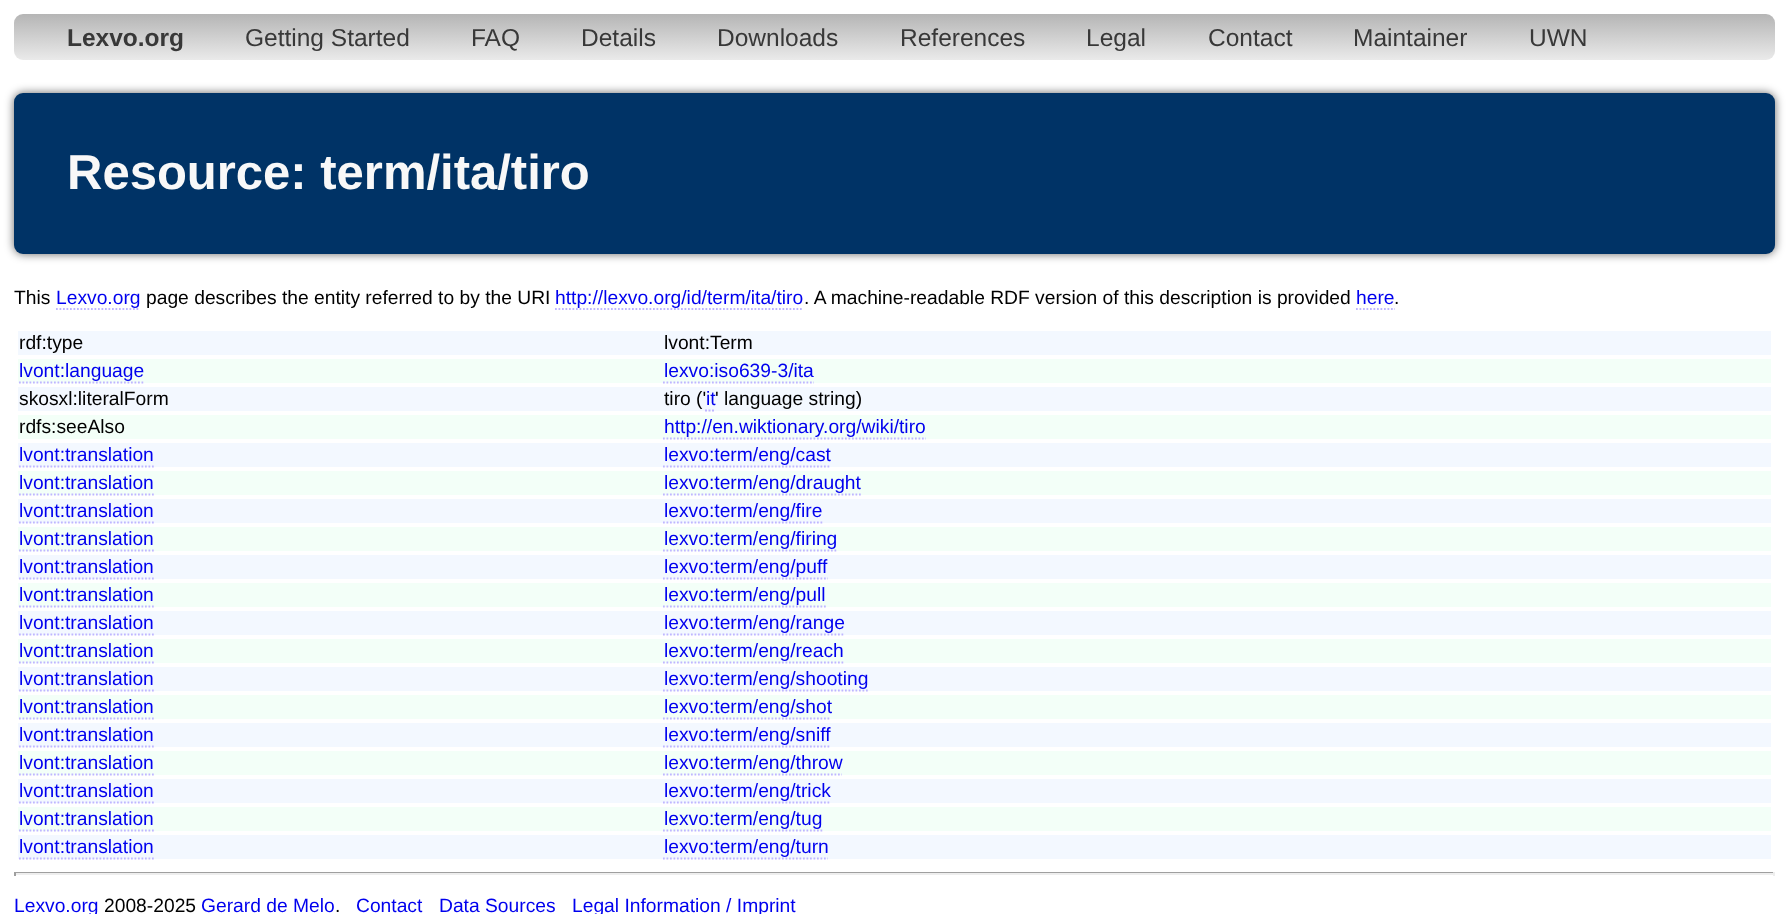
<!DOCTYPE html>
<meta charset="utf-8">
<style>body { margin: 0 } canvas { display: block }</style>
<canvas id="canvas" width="1787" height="914"></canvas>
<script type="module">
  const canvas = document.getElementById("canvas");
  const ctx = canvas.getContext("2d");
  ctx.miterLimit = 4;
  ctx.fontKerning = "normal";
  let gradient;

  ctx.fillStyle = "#ffffff";
  ctx.fillRect(0, 0, 1787, 914);
  gradient = ctx.createLinearGradient(894, 14, 894, 60);
  gradient.addColorStop(0, "#b5b5b5");
  gradient.addColorStop(1, "#eaeaea");
  ctx.fillStyle = gradient;
  ctx.beginPath();
  ctx.roundRect(14, 14, 1761, 46, 9);
  ctx.fill();
  ctx.font = "bold 24.5px Liberation Sans";
  ctx.fillStyle = "#383838";
  ctx.fillText("Lexvo.org", 67, 46);
  ctx.font = "24.5px Liberation Sans";
  ctx.fillText("Getting Started", 245, 46);
  ctx.fillText("FAQ", 471, 46);
  ctx.fillText("Details", 581, 46);
  ctx.fillText("Downloads", 717, 46);
  ctx.fillText("References", 900, 46);
  ctx.fillText("Legal", 1086, 46);
  ctx.fillText("Contact", 1208, 46);
  ctx.fillText("Maintainer", 1353, 46);
  ctx.fillText("UWN", 1529, 46);
  ctx.fillStyle = "rgba(0, 0, 0, 0.6)";
  ctx.filter = "blur(5px)";
  ctx.beginPath();
  ctx.roundRect(14, 93, 1761, 161, 9);
  ctx.fill();
  ctx.filter = "none";
  ctx.fillStyle = "#003366";
  ctx.beginPath();
  ctx.roundRect(14, 93, 1761, 161, 9);
  ctx.fill();
  ctx.font = "bold 49px Liberation Sans";
  ctx.fillStyle = "#f8f8f8";
  ctx.fillText("Resource: term/ita/tiro", 67, 189);
  ctx.font = "19.25px Liberation Sans";
  ctx.fillStyle = "#000000";
  ctx.fillText("This", 14, 304);
  ctx.fillStyle = "#0000ee";
  ctx.fillText("Lexvo.org", 56, 304);
  ctx.beginPath();
  ctx.moveTo(56, 309);
  ctx.lineTo(140, 309);
  ctx.strokeStyle = "#bfb6ff";
  ctx.lineWidth = 1.8;
  ctx.setLineDash([1.75, 1.75]);
  ctx.stroke();
  ctx.fillStyle = "#000000";
  ctx.fillText("page describes the entity referred to by the URI", 146, 304);
  ctx.fillStyle = "#0000ee";
  ctx.fillText("http://lexvo.org/id/term/ita/tiro", 555, 304);
  ctx.beginPath();
  ctx.moveTo(555, 309);
  ctx.lineTo(803, 309);
  ctx.stroke();
  ctx.fillStyle = "#000000";
  ctx.fillText(". A machine-readable RDF version of this description is provided", 804, 304);
  ctx.fillStyle = "#0000ee";
  ctx.fillText("here", 1356, 304);
  ctx.beginPath();
  ctx.moveTo(1356, 309);
  ctx.lineTo(1395, 309);
  ctx.stroke();
  ctx.fillStyle = "#000000";
  ctx.fillText(".", 1394, 304);
  ctx.fillStyle = "#f3f8ff";
  ctx.fillRect(18, 331, 1753, 24);
  ctx.fillStyle = "#000000";
  ctx.fillText("rdf:type", 19, 349);
  ctx.fillText("lvont:Term", 664, 349);
  ctx.fillStyle = "#f3fff8";
  ctx.fillRect(18, 359, 1753, 24);
  ctx.fillStyle = "#0000ee";
  ctx.fillText("lvont:language", 19, 377);
  ctx.beginPath();
  ctx.moveTo(19, 382.5);
  ctx.lineTo(145, 382.5);
  ctx.stroke();
  ctx.fillText("lexvo:iso639-3/ita", 664, 377);
  ctx.beginPath();
  ctx.moveTo(663, 382.5);
  ctx.lineTo(814, 382.5);
  ctx.stroke();
  ctx.fillStyle = "#f3f8ff";
  ctx.fillRect(18, 387, 1753, 24);
  ctx.fillStyle = "#000000";
  ctx.fillText("skosxl:literalForm", 19, 405);
  ctx.fillText("tiro ('", 664, 405);
  ctx.fillStyle = "#0000ee";
  ctx.fillText("it", 706, 405);
  ctx.beginPath();
  ctx.moveTo(705, 410.5);
  ctx.lineTo(707, 410.5);
  ctx.moveTo(708.5, 410.5);
  ctx.lineTo(710.5, 410.5);
  ctx.moveTo(712, 410.5);
  ctx.lineTo(714, 410.5);
  ctx.setLineDash([]);
  ctx.stroke();
  ctx.fillStyle = "#000000";
  ctx.fillText("' language string)", 715, 405);
  ctx.fillStyle = "#f3fff8";
  ctx.fillRect(18, 415, 1753, 24);
  ctx.fillStyle = "#000000";
  ctx.fillText("rdfs:seeAlso", 19, 433);
  ctx.fillStyle = "#0000ee";
  ctx.fillText("http://en.wiktionary.org/wiki/tiro", 664, 433);
  ctx.beginPath();
  ctx.moveTo(663, 438.5);
  ctx.lineTo(926, 438.5);
  ctx.setLineDash([1.75, 1.75]);
  ctx.stroke();
  ctx.fillStyle = "#f3f8ff";
  ctx.fillRect(18, 443, 1753, 24);
  ctx.fillStyle = "#0000ee";
  ctx.fillText("lvont:translation", 19, 461);
  ctx.beginPath();
  ctx.moveTo(19, 466.5);
  ctx.lineTo(154, 466.5);
  ctx.stroke();
  ctx.fillText("lexvo:term/eng/cast", 664, 461);
  ctx.beginPath();
  ctx.moveTo(663, 466.5);
  ctx.lineTo(831, 466.5);
  ctx.stroke();
  ctx.fillStyle = "#f3fff8";
  ctx.fillRect(18, 471, 1753, 24);
  ctx.fillStyle = "#0000ee";
  ctx.fillText("lvont:translation", 19, 489);
  ctx.beginPath();
  ctx.moveTo(19, 494.5);
  ctx.lineTo(154, 494.5);
  ctx.stroke();
  ctx.fillText("lexvo:term/eng/draught", 664, 489);
  ctx.beginPath();
  ctx.moveTo(663, 494.5);
  ctx.lineTo(861, 494.5);
  ctx.stroke();
  ctx.fillStyle = "#f3f8ff";
  ctx.fillRect(18, 499, 1753, 24);
  ctx.fillStyle = "#0000ee";
  ctx.fillText("lvont:translation", 19, 517);
  ctx.beginPath();
  ctx.moveTo(19, 522.5);
  ctx.lineTo(154, 522.5);
  ctx.stroke();
  ctx.fillText("lexvo:term/eng/fire", 664, 517);
  ctx.beginPath();
  ctx.moveTo(663, 522.5);
  ctx.lineTo(822.5, 522.5);
  ctx.stroke();
  ctx.fillStyle = "#f3fff8";
  ctx.fillRect(18, 527, 1753, 24);
  ctx.fillStyle = "#0000ee";
  ctx.fillText("lvont:translation", 19, 545);
  ctx.beginPath();
  ctx.moveTo(19, 550.5);
  ctx.lineTo(154, 550.5);
  ctx.stroke();
  ctx.fillText("lexvo:term/eng/firing", 664, 545);
  ctx.beginPath();
  ctx.moveTo(663, 550.5);
  ctx.lineTo(836.5, 550.5);
  ctx.stroke();
  ctx.fillStyle = "#f3f8ff";
  ctx.fillRect(18, 555, 1753, 24);
  ctx.fillStyle = "#0000ee";
  ctx.fillText("lvont:translation", 19, 573);
  ctx.beginPath();
  ctx.moveTo(19, 578.5);
  ctx.lineTo(154, 578.5);
  ctx.stroke();
  ctx.fillText("lexvo:term/eng/puff", 664, 573);
  ctx.beginPath();
  ctx.moveTo(663, 578.5);
  ctx.lineTo(828, 578.5);
  ctx.stroke();
  ctx.fillStyle = "#f3fff8";
  ctx.fillRect(18, 583, 1753, 24);
  ctx.fillStyle = "#0000ee";
  ctx.fillText("lvont:translation", 19, 601);
  ctx.beginPath();
  ctx.moveTo(19, 606.5);
  ctx.lineTo(154, 606.5);
  ctx.stroke();
  ctx.fillText("lexvo:term/eng/pull", 664, 601);
  ctx.beginPath();
  ctx.moveTo(663, 606.5);
  ctx.lineTo(826, 606.5);
  ctx.stroke();
  ctx.fillStyle = "#f3f8ff";
  ctx.fillRect(18, 611, 1753, 24);
  ctx.fillStyle = "#0000ee";
  ctx.fillText("lvont:translation", 19, 629);
  ctx.beginPath();
  ctx.moveTo(19, 634.5);
  ctx.lineTo(154, 634.5);
  ctx.stroke();
  ctx.fillText("lexvo:term/eng/range", 664, 629);
  ctx.beginPath();
  ctx.moveTo(663, 634.5);
  ctx.lineTo(845, 634.5);
  ctx.stroke();
  ctx.fillStyle = "#f3fff8";
  ctx.fillRect(18, 639, 1753, 24);
  ctx.fillStyle = "#0000ee";
  ctx.fillText("lvont:translation", 19, 657);
  ctx.beginPath();
  ctx.moveTo(19, 662.5);
  ctx.lineTo(154, 662.5);
  ctx.stroke();
  ctx.fillText("lexvo:term/eng/reach", 664, 657);
  ctx.beginPath();
  ctx.moveTo(663, 662.5);
  ctx.lineTo(843.5, 662.5);
  ctx.stroke();
  ctx.fillStyle = "#f3f8ff";
  ctx.fillRect(18, 667, 1753, 24);
  ctx.fillStyle = "#0000ee";
  ctx.fillText("lvont:translation", 19, 685);
  ctx.beginPath();
  ctx.moveTo(19, 690.5);
  ctx.lineTo(154, 690.5);
  ctx.stroke();
  ctx.fillText("lexvo:term/eng/shooting", 664, 685);
  ctx.beginPath();
  ctx.moveTo(663, 690.5);
  ctx.lineTo(868, 690.5);
  ctx.stroke();
  ctx.fillStyle = "#f3fff8";
  ctx.fillRect(18, 695, 1753, 24);
  ctx.fillStyle = "#0000ee";
  ctx.fillText("lvont:translation", 19, 713);
  ctx.beginPath();
  ctx.moveTo(19, 718.5);
  ctx.lineTo(154, 718.5);
  ctx.stroke();
  ctx.fillText("lexvo:term/eng/shot", 664, 713);
  ctx.beginPath();
  ctx.moveTo(663, 718.5);
  ctx.lineTo(831, 718.5);
  ctx.stroke();
  ctx.fillStyle = "#f3f8ff";
  ctx.fillRect(18, 723, 1753, 24);
  ctx.fillStyle = "#0000ee";
  ctx.fillText("lvont:translation", 19, 741);
  ctx.beginPath();
  ctx.moveTo(19, 746.5);
  ctx.lineTo(154, 746.5);
  ctx.stroke();
  ctx.fillText("lexvo:term/eng/sniff", 664, 741);
  ctx.beginPath();
  ctx.moveTo(663, 746.5);
  ctx.lineTo(829.5, 746.5);
  ctx.stroke();
  ctx.fillStyle = "#f3fff8";
  ctx.fillRect(18, 751, 1753, 24);
  ctx.fillStyle = "#0000ee";
  ctx.fillText("lvont:translation", 19, 769);
  ctx.beginPath();
  ctx.moveTo(19, 774.5);
  ctx.lineTo(154, 774.5);
  ctx.stroke();
  ctx.fillText("lexvo:term/eng/throw", 664, 769);
  ctx.beginPath();
  ctx.moveTo(663, 774.5);
  ctx.lineTo(842, 774.5);
  ctx.stroke();
  ctx.fillStyle = "#f3f8ff";
  ctx.fillRect(18, 779, 1753, 24);
  ctx.fillStyle = "#0000ee";
  ctx.fillText("lvont:translation", 19, 797);
  ctx.beginPath();
  ctx.moveTo(19, 802.5);
  ctx.lineTo(154, 802.5);
  ctx.stroke();
  ctx.fillText("lexvo:term/eng/trick", 664, 797);
  ctx.beginPath();
  ctx.moveTo(663, 802.5);
  ctx.lineTo(831, 802.5);
  ctx.stroke();
  ctx.fillStyle = "#f3fff8";
  ctx.fillRect(18, 807, 1753, 24);
  ctx.fillStyle = "#0000ee";
  ctx.fillText("lvont:translation", 19, 825);
  ctx.beginPath();
  ctx.moveTo(19, 830.5);
  ctx.lineTo(154, 830.5);
  ctx.stroke();
  ctx.fillText("lexvo:term/eng/tug", 664, 825);
  ctx.beginPath();
  ctx.moveTo(663, 830.5);
  ctx.lineTo(822.5, 830.5);
  ctx.stroke();
  ctx.fillStyle = "#f3f8ff";
  ctx.fillRect(18, 835, 1753, 24);
  ctx.fillStyle = "#0000ee";
  ctx.fillText("lvont:translation", 19, 853);
  ctx.beginPath();
  ctx.moveTo(19, 858.5);
  ctx.lineTo(154, 858.5);
  ctx.stroke();
  ctx.fillText("lexvo:term/eng/turn", 664, 853);
  ctx.beginPath();
  ctx.moveTo(663, 858.5);
  ctx.lineTo(828, 858.5);
  ctx.stroke();
  ctx.fillStyle = "#9f9f9f";
  ctx.fillRect(14, 872, 1761, 1);
  ctx.fillStyle = "#eeeeee";
  ctx.fillRect(1773, 872, 2, 4);
  ctx.fillRect(14, 873, 1761, 2);
  ctx.fillStyle = "#9f9f9f";
  ctx.fillRect(14, 872, 2, 4);
  ctx.fillStyle = "#0000ee";
  ctx.fillText("Lexvo.org", 14, 912);
  ctx.fillStyle = "#000000";
  ctx.fillText("2008-2025", 104, 912);
  ctx.fillStyle = "#0000ee";
  ctx.fillText("Gerard de Melo", 201, 912);
  ctx.fillStyle = "#000000";
  ctx.fillText(".", 335, 912);
  ctx.fillStyle = "#0000ee";
  ctx.fillText("Contact", 356, 912);
  ctx.fillText("Data Sources", 439, 912);
  ctx.fillText("Legal Information / Imprint", 572, 912);
</script>
